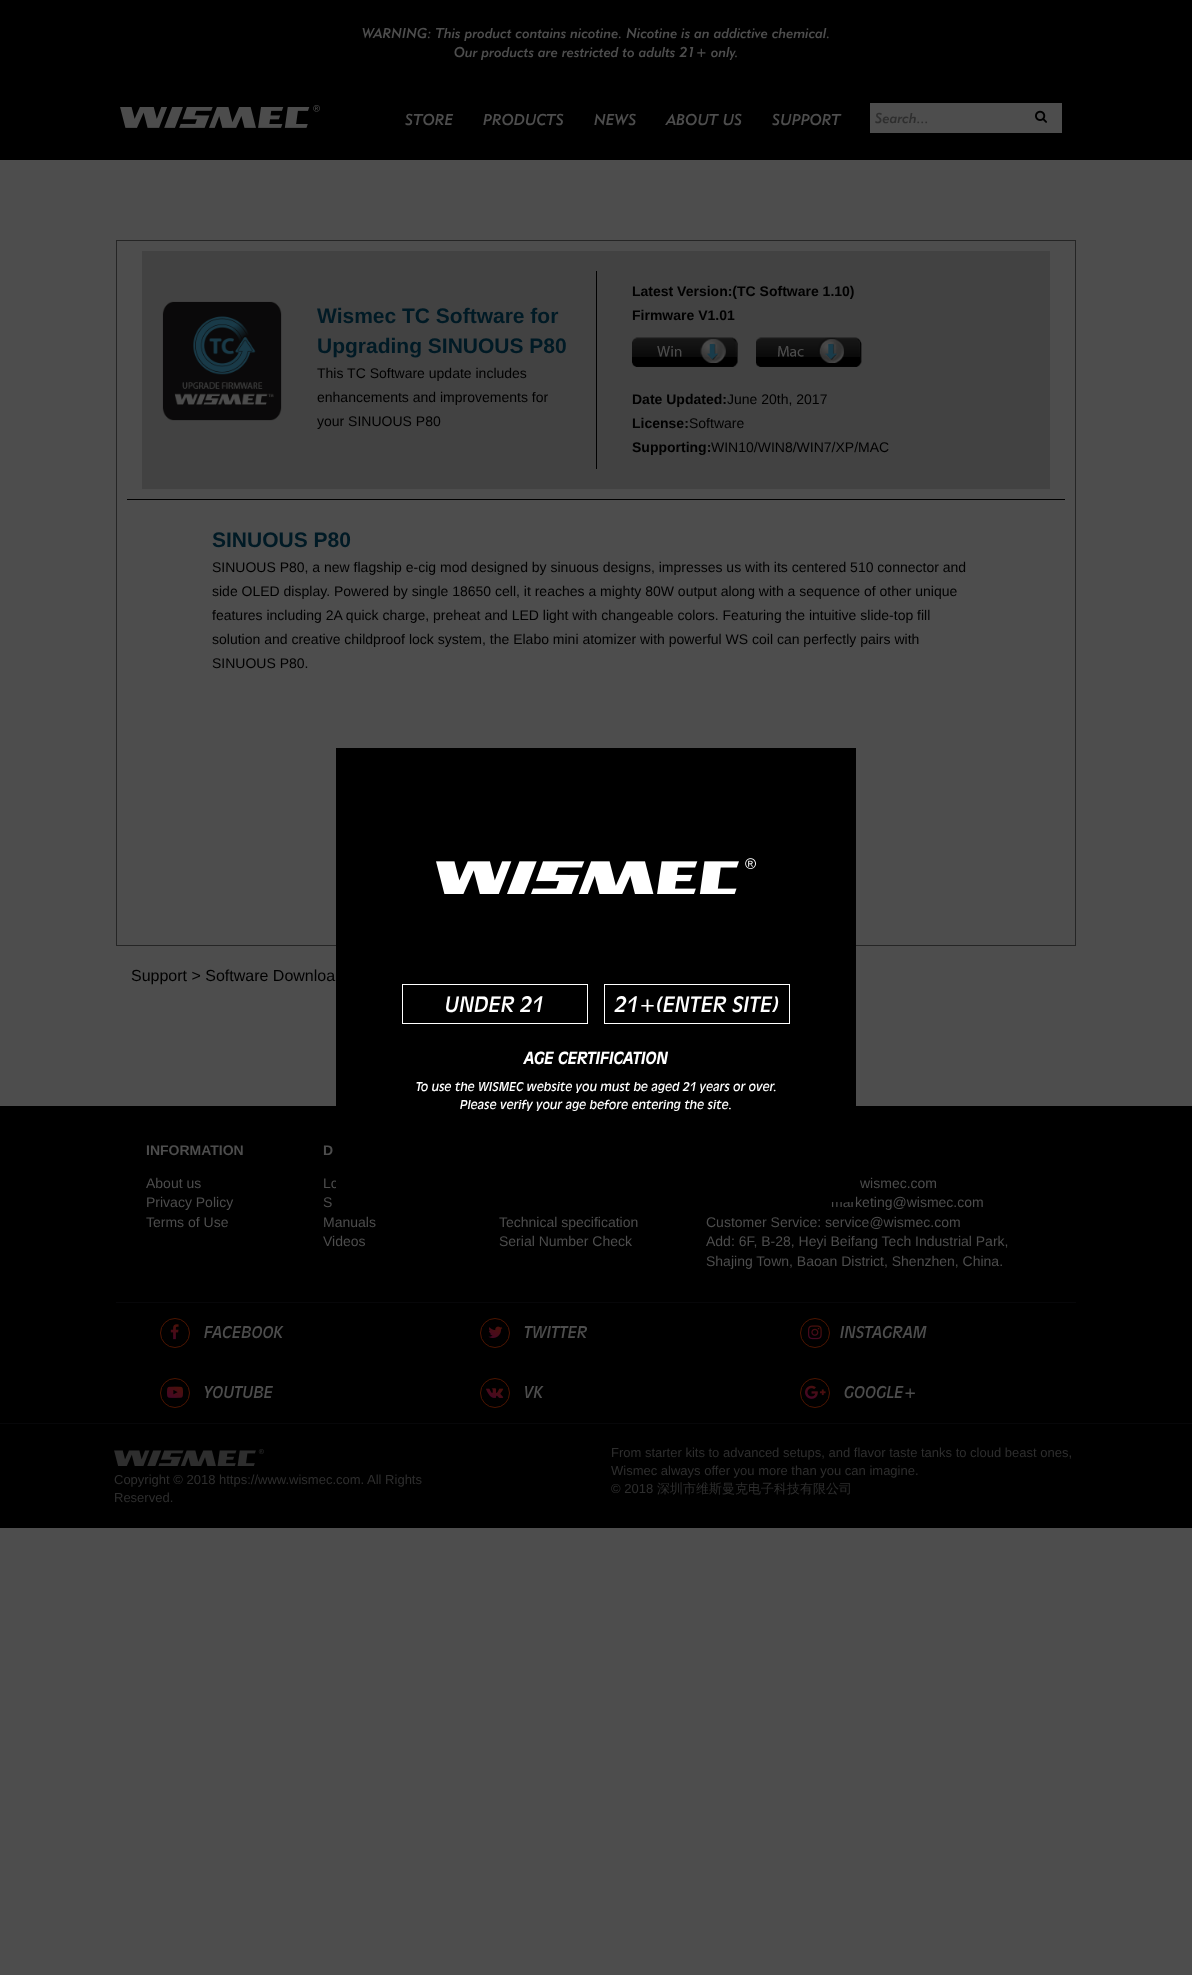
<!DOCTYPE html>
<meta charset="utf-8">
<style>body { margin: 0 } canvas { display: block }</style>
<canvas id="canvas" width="1192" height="1975"></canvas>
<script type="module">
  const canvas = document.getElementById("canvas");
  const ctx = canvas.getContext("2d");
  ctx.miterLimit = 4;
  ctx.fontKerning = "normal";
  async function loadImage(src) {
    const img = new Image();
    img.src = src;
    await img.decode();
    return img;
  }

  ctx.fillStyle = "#4d4d4d";
  ctx.fillRect(0, 0, 1192, 1975);
  ctx.fillStyle = "#000000";
  ctx.fillRect(0, 0, 1192, 160);
  ctx.font = "italic 14px '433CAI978'";
  ctx.fillStyle = "#4d4d4d";
  ctx.fillText("WARNING: This product contains nicotine. Nicotine is an addictive chemical.", 362, 38);
  ctx.fillText("Our products are restricted to adults 21+ only.", 454, 57);
  ctx.drawImage(await loadImage("img1.png"), 120, 105, 200, 23);
  ctx.font = "italic 15.5px '433CAI978'";
  ctx.fillText("STORE", 405, 125);
  ctx.fillText("PRODUCTS", 483, 125);
  ctx.fillText("NEWS", 594, 125);
  ctx.fillText("ABOUT US", 666, 125);
  ctx.fillText("SUPPORT", 772, 125);
  ctx.fillRect(870, 103, 192, 30);
  ctx.font = "italic 14px '433CAI978'";
  ctx.fillStyle = "#2e2e2e";
  ctx.fillText("Search...", 875, 123);
  ctx.drawImage(await loadImage("img2.png"), 1035, 110, 12, 13);
  ctx.strokeStyle = "#252525";
  ctx.strokeRect(116.5, 240.5, 959, 705);
  ctx.fillStyle = "#424242";
  ctx.fillRect(142, 251, 908, 238);
  ctx.drawImage(await loadImage("img3.png"), 162, 301, 120, 120);
  ctx.font = "bold 21px Liberation Sans";
  ctx.fillStyle = "#001a25";
  ctx.fillText("Wismec TC Software for", 317, 323);
  ctx.fillText("Upgrading SINUOUS P80", 317, 353);
  ctx.font = "14px Liberation Sans";
  ctx.fillStyle = "#000000";
  ctx.fillText("This TC Software update includes", 317, 378);
  ctx.fillText("enhancements and improvements for", 317, 402);
  ctx.fillText("your SINUOUS P80", 317, 426);
  ctx.fillRect(596, 271, 1, 198);
  ctx.font = "bold 14px Liberation Sans";
  ctx.fillText("Latest Version:(TC Software 1.10)", 632, 296);
  ctx.fillText("Firmware V1.01", 632, 320);
  ctx.drawImage(await loadImage("img4.png"), 632, 337, 106, 30);
  ctx.drawImage(await loadImage("img5.png"), 756, 337, 106, 30);
  ctx.fillText("Date Updated:", 632, 404);
  ctx.font = "14px Liberation Sans";
  ctx.fillText("June 20th, 2017", 727, 404);
  ctx.font = "bold 14px Liberation Sans";
  ctx.fillText("License:", 632, 428);
  ctx.font = "14px Liberation Sans";
  ctx.fillText("Software", 689, 428);
  ctx.font = "bold 14px Liberation Sans";
  ctx.fillText("Supporting:", 632, 452);
  ctx.font = "14px Liberation Sans";
  ctx.fillText("WIN10/WIN8/WIN7/XP/MAC", 711, 452);
  ctx.fillRect(127, 499, 938, 1);
  ctx.font = "bold 21px Liberation Sans";
  ctx.fillStyle = "#001a25";
  ctx.fillText("SINUOUS P80", 212, 547);
  ctx.font = "14px Liberation Sans";
  ctx.fillStyle = "#000000";
  ctx.fillText("SINUOUS P80, a new flagship e-cig mod designed by sinuous designs, impresses us with its centered 510 connector and", 212, 572);
  ctx.fillText("side OLED display. Powered by single 18650 cell, it reaches a mighty 80W output along with a sequence of other unique", 212, 596);
  ctx.fillText("features including 2A quick charge, preheat and LED light with changeable colors. Featuring the intuitive slide-top fill", 212, 620);
  ctx.fillText("solution and creative childproof lock system, the Elabo mini atomizer with powerful WS coil can perfectly pairs with", 212, 644);
  ctx.fillText("SINUOUS P80.", 212, 668);
  ctx.font = "16px Liberation Sans";
  ctx.fillText("Support > Software Downloa", 131, 981);
  ctx.fillRect(0, 1106, 1192, 422);
  ctx.font = "14px Liberation Sans";
  ctx.fillStyle = "#4d4d4d";
  ctx.fillText("Lo", 323, 1188);
  ctx.fillText("marketing@wismec.com", 831, 1207);
  ctx.fillStyle = "#000000";
  ctx.fillRect(336, 748, 520, 454);
  ctx.drawImage(await loadImage("img6.png"), 436, 858, 320, 36);
  ctx.strokeStyle = "#ffffff";
  ctx.strokeRect(402.5, 984.5, 185, 39);
  ctx.font = "italic 21px '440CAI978'";
  ctx.fillStyle = "#ffffff";
  ctx.fillText("UNDER 21", 445, 1012);
  ctx.strokeRect(604.5, 984.5, 185, 39);
  ctx.fillText("21+(ENTER SITE)", 615, 1012);
  ctx.font = "italic bold 16px '440CAI978'";
  ctx.fillText("AGE CERTIFICATION", 524, 1064);
  ctx.font = "italic 12px '440CAI978'";
  ctx.fillText("To use the WISMEC website you must be aged 21 years or over.", 416, 1091);
  ctx.fillText("Please verify your age before entering the site.", 460, 1109);
  ctx.fillStyle = "#070709";
  ctx.fillRect(116, 1302, 960, 1);
  ctx.font = "bold 14px Liberation Sans";
  ctx.fillStyle = "#4d4d4d";
  ctx.fillText("INFORMATION", 146, 1155);
  ctx.font = "14px Liberation Sans";
  ctx.fillText("About us", 146, 1188);
  ctx.fillText("Privacy Policy", 146, 1207);
  ctx.fillText("Terms of Use", 146, 1227);
  ctx.font = "bold 14px Liberation Sans";
  ctx.fillText("D", 323, 1155);
  ctx.font = "14px Liberation Sans";
  ctx.fillText("S", 323, 1207);
  ctx.fillText("Manuals", 323, 1227);
  ctx.fillText("Videos", 323, 1246);
  ctx.fillText("Technical specification", 499, 1227);
  ctx.fillText("Serial Number Check", 499, 1246);
  ctx.fillText("wismec.com", 860, 1188);
  ctx.fillText("Customer Service: service@wismec.com", 706, 1227);
  ctx.fillText("Add: 6F, B-28, Heyi Beifang Tech Industrial Park,", 706, 1246);
  ctx.fillText("Shajing Town, Baoan District, Shenzhen, China.", 706, 1266);
  ctx.beginPath();
  ctx.arc(175, 1333, 14.5, 0, Math.PI * 2);
  ctx.strokeStyle = "#4d1500";
  ctx.stroke();
  ctx.drawImage(await loadImage("img7.png"), 170, 1324, 9, 16);
  ctx.font = "italic 16px '440CAI978'";
  ctx.fillText("FACEBOOK", 204, 1338);
  ctx.beginPath();
  ctx.arc(495, 1333, 14.5, 0, Math.PI * 2);
  ctx.stroke();
  ctx.drawImage(await loadImage("img8.png"), 488, 1326, 15, 12);
  ctx.fillText("TWITTER", 524, 1338);
  ctx.beginPath();
  ctx.arc(815, 1333, 14.5, 0, Math.PI * 2);
  ctx.stroke();
  ctx.drawImage(await loadImage("img9.png"), 808, 1325, 14, 15);
  ctx.fillText("INSTAGRAM", 840, 1338);
  ctx.beginPath();
  ctx.arc(175, 1393, 14.5, 0, Math.PI * 2);
  ctx.stroke();
  ctx.drawImage(await loadImage("img10.png"), 167, 1386, 16, 12);
  ctx.fillText("YOUTUBE", 204, 1398);
  ctx.beginPath();
  ctx.arc(495, 1393, 14.5, 0, Math.PI * 2);
  ctx.stroke();
  ctx.drawImage(await loadImage("img11.png"), 486, 1388, 18, 10);
  ctx.fillText("VK", 524, 1398);
  ctx.beginPath();
  ctx.arc(815, 1393, 14.5, 0, Math.PI * 2);
  ctx.stroke();
  ctx.drawImage(await loadImage("img12.png"), 805, 1385, 21, 14);
  ctx.fillText("GOOGLE+", 844, 1398);
  ctx.fillStyle = "#070709";
  ctx.fillRect(0, 1423, 1192, 1);
  ctx.drawImage(await loadImage("img13.png"), 114, 1449, 150, 17);
  ctx.font = "13px Liberation Sans";
  ctx.fillStyle = "#2e2e2e";
  ctx.fillText("Copyright © 2018 https://www.wismec.com. All Rights", 114, 1484);
  ctx.fillText("Reserved.", 114, 1502);
  ctx.fillText("From starter kits to advanced setups, and flavor taste tanks to cloud beast ones,", 611, 1457);
  ctx.fillText("Wismec always offer you more than you can imagine.", 611, 1475);
  ctx.fillText("© 2018", 611, 1493);
  ctx.font = "500 13px WenQuanYi Zen Hei";
  ctx.fillText("深圳市维斯曼克电子科技有限公司", 657, 1493);
</script>
